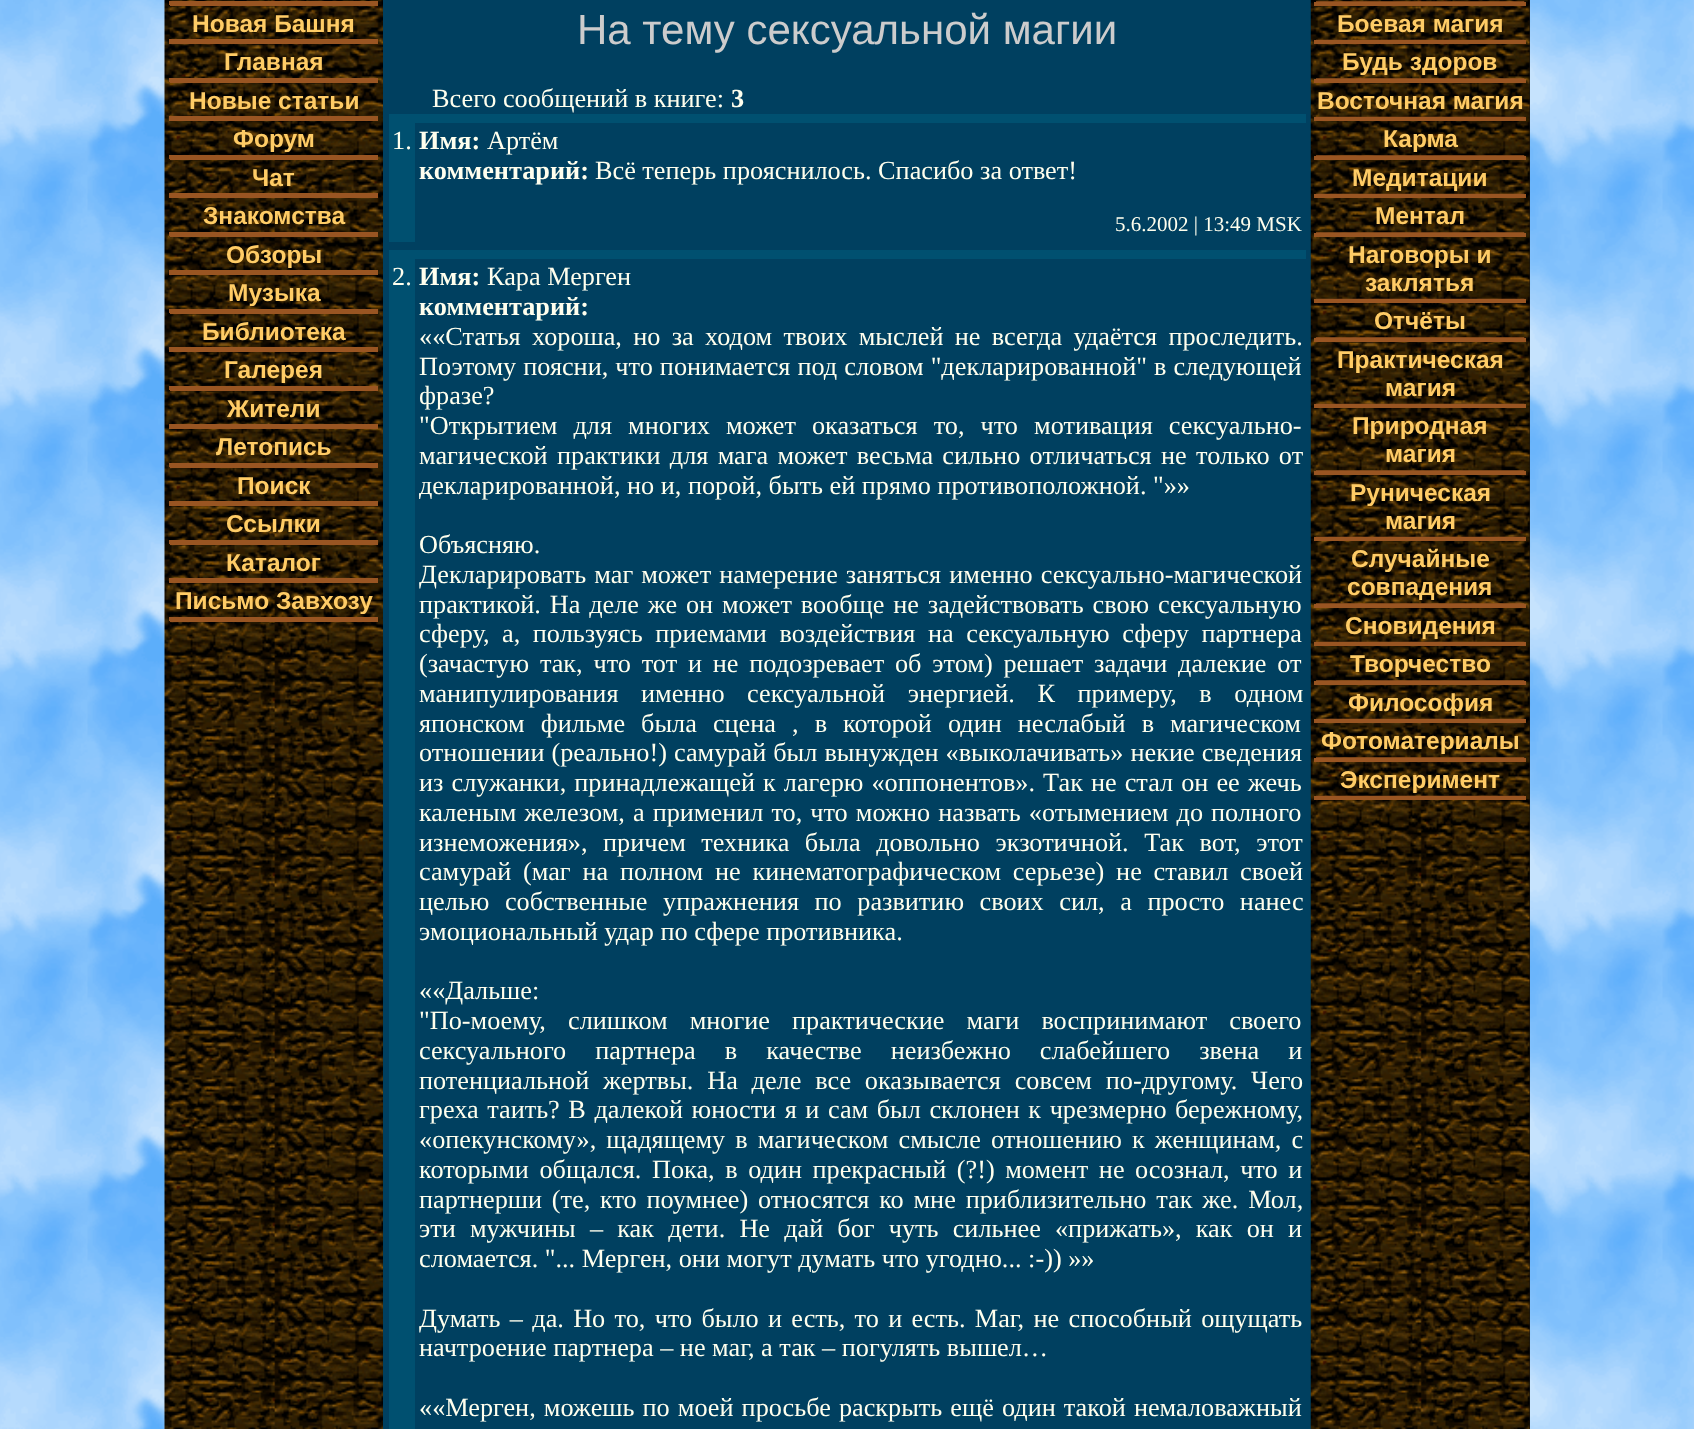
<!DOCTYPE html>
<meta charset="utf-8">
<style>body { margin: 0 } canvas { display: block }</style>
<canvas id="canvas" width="1694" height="1429"></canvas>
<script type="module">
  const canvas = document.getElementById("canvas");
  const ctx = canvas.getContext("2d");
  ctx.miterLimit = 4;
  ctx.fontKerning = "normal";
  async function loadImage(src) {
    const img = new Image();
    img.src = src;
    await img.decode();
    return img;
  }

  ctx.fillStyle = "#ffffff";
  ctx.fillRect(0, 0, 1694, 1429);
  ctx.drawImage(await loadImage("img1.png"), 0, 0, 1694, 1429);
  ctx.drawImage(await loadImage("img2.png"), 164, 0, 219, 1429);
  ctx.fillStyle = "#995522";
  ctx.fillRect(170, 5, 208, 1);
  ctx.fillRect(169, 1, 209, 4);
  ctx.font = "bold 24.5px Liberation Sans";
  ctx.fillStyle = "#ffcc66";
  ctx.fillText("Новая Башня", 192, 32);
  ctx.fillStyle = "#995522";
  ctx.fillRect(169, 39, 209, 5);
  ctx.fillStyle = "#ffcc66";
  ctx.fillText("Главная", 224, 70);
  ctx.fillStyle = "#995522";
  ctx.fillRect(170, 82, 208, 1);
  ctx.fillRect(169, 78, 209, 4);
  ctx.fillStyle = "#ffcc66";
  ctx.fillText("Новые статьи", 189, 109);
  ctx.fillStyle = "#995522";
  ctx.fillRect(169, 116, 209, 5);
  ctx.fillStyle = "#ffcc66";
  ctx.fillText("Форум", 233, 147);
  ctx.fillStyle = "#995522";
  ctx.fillRect(170, 159, 208, 1);
  ctx.fillRect(169, 155, 209, 4);
  ctx.fillStyle = "#ffcc66";
  ctx.fillText("Чат", 252, 186);
  ctx.fillStyle = "#995522";
  ctx.fillRect(169, 193, 209, 5);
  ctx.fillStyle = "#ffcc66";
  ctx.fillText("Знакомства", 203, 224);
  ctx.fillStyle = "#995522";
  ctx.fillRect(170, 236, 208, 1);
  ctx.fillRect(169, 232, 209, 4);
  ctx.fillStyle = "#ffcc66";
  ctx.fillText("Обзоры", 226, 263);
  ctx.fillStyle = "#995522";
  ctx.fillRect(169, 270, 209, 5);
  ctx.fillStyle = "#ffcc66";
  ctx.fillText("Музыка", 228, 301);
  ctx.fillStyle = "#995522";
  ctx.fillRect(170, 313, 208, 1);
  ctx.fillRect(169, 309, 209, 4);
  ctx.fillStyle = "#ffcc66";
  ctx.fillText("Библиотека", 202, 340);
  ctx.fillStyle = "#995522";
  ctx.fillRect(169, 347, 209, 5);
  ctx.fillStyle = "#ffcc66";
  ctx.fillText("Галерея", 224, 378);
  ctx.fillStyle = "#995522";
  ctx.fillRect(170, 390, 208, 1);
  ctx.fillRect(169, 386, 209, 4);
  ctx.fillStyle = "#ffcc66";
  ctx.fillText("Жители", 227, 417);
  ctx.fillStyle = "#995522";
  ctx.fillRect(169, 424, 209, 5);
  ctx.fillStyle = "#ffcc66";
  ctx.fillText("Летопись", 216, 455);
  ctx.fillStyle = "#995522";
  ctx.fillRect(170, 467, 208, 1);
  ctx.fillRect(169, 463, 209, 4);
  ctx.fillStyle = "#ffcc66";
  ctx.fillText("Поиск", 237, 494);
  ctx.fillStyle = "#995522";
  ctx.fillRect(169, 501, 209, 5);
  ctx.fillStyle = "#ffcc66";
  ctx.fillText("Ссылки", 226, 532);
  ctx.fillStyle = "#995522";
  ctx.fillRect(170, 544, 208, 1);
  ctx.fillRect(169, 540, 209, 4);
  ctx.fillStyle = "#ffcc66";
  ctx.fillText("Каталог", 226, 571);
  ctx.fillStyle = "#995522";
  ctx.fillRect(169, 578, 209, 5);
  ctx.fillStyle = "#ffcc66";
  ctx.fillText("Письмо Завхозу", 175, 609);
  ctx.fillStyle = "#995522";
  ctx.fillRect(170, 621, 208, 1);
  ctx.fillRect(169, 617, 209, 4);
  ctx.fillStyle = "#004060";
  ctx.fillRect(383, 0, 928, 1429);
  ctx.font = "42px Liberation Sans";
  ctx.fillStyle = "#cccccc";
  ctx.fillText("На тему сексуальной магии", 577, 44);
  ctx.font = "26.25px Liberation Serif";
  ctx.fillStyle = "#ffffee";
  ctx.fillText("Всего сообщений в книге:", 432, 107);
  ctx.font = "bold 26.25px Liberation Serif";
  ctx.fillText("3", 731, 107);
  ctx.fillStyle = "#005070";
  ctx.fillRect(389, 114, 917, 9);
  ctx.fillRect(389, 123, 26, 119);
  ctx.font = "26.25px Liberation Serif";
  ctx.fillStyle = "#ffffee";
  ctx.fillText("1.", 392, 149);
  ctx.font = "bold 26.25px Liberation Serif";
  ctx.fillText("Имя:", 419, 149);
  ctx.font = "26.25px Liberation Serif";
  ctx.fillText("Артём", 487, 149);
  ctx.font = "bold 26.25px Liberation Serif";
  ctx.fillText("комментарий:", 419, 179);
  ctx.font = "26.25px Liberation Serif";
  ctx.fillText("Всё теперь прояснилось. Спасибо за ответ!", 595, 179);
  ctx.font = "21px Liberation Serif";
  ctx.fillText("5.6.2002 | 13:49 MSK", 1115, 231);
  ctx.fillStyle = "#005070";
  ctx.fillRect(389, 250, 917, 9);
  ctx.fillRect(389, 259, 26, 1170);
  ctx.font = "26.25px Liberation Serif";
  ctx.fillStyle = "#ffffee";
  ctx.fillText("2.", 392, 285);
  ctx.font = "bold 26.25px Liberation Serif";
  ctx.fillText("Имя:", 419, 285);
  ctx.font = "26.25px Liberation Serif";
  ctx.fillText("Кара Мерген", 487, 285);
  ctx.font = "bold 26.25px Liberation Serif";
  ctx.fillText("комментарий:", 419, 315);
  ctx.wordSpacing = "4.75px";
  ctx.font = "26.25px Liberation Serif";
  ctx.fillText("««Статья хороша, но за ходом твоих мыслей не всегда удаётся проследить.", 419, 345);
  ctx.wordSpacing = "0.5px";
  ctx.fillText("Поэтому поясни, что понимается под словом \"декларированной\" в следующей", 419, 375);
  ctx.wordSpacing = "0px";
  ctx.fillText("фразе?", 419, 404);
  ctx.wordSpacing = "9.5px";
  ctx.fillText("\"Открытием для многих может оказаться то, что мотивация сексуально-", 419, 434);
  ctx.wordSpacing = "2.75px";
  ctx.fillText("магической практики для мага может весьма сильно отличаться не только от", 419, 464);
  ctx.wordSpacing = "0px";
  ctx.fillText("декларированной, но и, порой, быть ей прямо противоположной. \"»»", 419, 494);
  ctx.fillText("Объясняю.", 419, 553);
  ctx.wordSpacing = "1.5px";
  ctx.fillText("Декларировать маг может намерение заняться именно сексуально-магической", 419, 583);
  ctx.wordSpacing = "2.25px";
  ctx.fillText("практикой. На деле же он может вообще не задействовать свою сексуальную", 419, 613);
  ctx.wordSpacing = "6px";
  ctx.fillText("сферу, а, пользуясь приемами воздействия на сексуальную сферу партнера", 419, 642);
  ctx.wordSpacing = "4.25px";
  ctx.fillText("(зачастую так, что тот и не подозревает об этом) решает задачи далекие от", 419, 672);
  ctx.wordSpacing = "16px";
  ctx.fillText("манипулирования именно сексуальной энергией. К примеру, в одном", 419, 702);
  ctx.wordSpacing = "9.5px";
  ctx.fillText("японском фильме была сцена , в которой один неслабый в магическом", 419, 732);
  ctx.wordSpacing = "0.5px";
  ctx.fillText("отношении (реально!) самурай был вынужден «выколачивать» некие сведения", 419, 761);
  ctx.wordSpacing = "1.5px";
  ctx.fillText("из служанки, принадлежащей к лагерю «оппонентов». Так не стал он ее жечь", 419, 791);
  ctx.fillText("каленым железом, а применил то, что можно назвать «отымением до полного", 419, 821);
  ctx.wordSpacing = "9px";
  ctx.fillText("изнеможения», причем техника была довольно экзотичной. Так вот, этот", 419, 851);
  ctx.wordSpacing = "5.25px";
  ctx.fillText("самурай (маг на полном не кинематографическом серьезе) не ставил своей", 419, 880);
  ctx.wordSpacing = "9px";
  ctx.fillText("целью собственные упражнения по развитию своих сил, а просто нанес", 419, 910);
  ctx.wordSpacing = "0px";
  ctx.fillText("эмоциональный удар по сфере противника.", 419, 940);
  ctx.fillText("««Дальше:", 419, 999);
  ctx.wordSpacing = "15.5px";
  ctx.fillText("\"По-моему, слишком многие практические маги воспринимают своего", 419, 1029);
  ctx.wordSpacing = "22.5px";
  ctx.fillText("сексуального партнера в качестве неизбежно слабейшего звена и", 419, 1059);
  ctx.wordSpacing = "7.25px";
  ctx.fillText("потенциальной жертвы. На деле все оказывается совсем по-другому. Чего", 419, 1089);
  ctx.wordSpacing = "2px";
  ctx.fillText("греха таить? В далекой юности я и сам был склонен к чрезмерно бережному,", 419, 1118);
  ctx.wordSpacing = "3.5px";
  ctx.fillText("«опекунскому», щадящему в магическом смысле отношению к женщинам, с", 419, 1148);
  ctx.wordSpacing = "4px";
  ctx.fillText("которыми общался. Пока, в один прекрасный (?!) момент не осознал, что и", 419, 1178);
  ctx.wordSpacing = "3.25px";
  ctx.fillText("партнерши (те, кто поумнее) относятся ко мне приблизительно так же. Мол,", 419, 1208);
  ctx.wordSpacing = "7.6px";
  ctx.fillText("эти мужчины – как дети. Не дай бог чуть сильнее «прижать», как он и", 419, 1237);
  ctx.wordSpacing = "0px";
  ctx.fillText("сломается. \"... Мерген, они могут думать что угодно... :-)) »»", 419, 1267);
  ctx.wordSpacing = "2.75px";
  ctx.fillText("Думать – да. Но то, что было и есть, то и есть. Маг, не способный ощущать", 419, 1327);
  ctx.wordSpacing = "0px";
  ctx.fillText("начтроение партнера – не маг, а так – погулять вышел…", 419, 1356);
  ctx.wordSpacing = "1.5px";
  ctx.fillText("««Мерген, можешь по моей просьбе раскрыть ещё один такой немаловажный", 419, 1416);
  ctx.fillStyle = "#151515";
  ctx.fillRect(1529, 0, 1, 1429);
  ctx.drawImage(await loadImage("img3.png"), 1310, 0, 220, 1429);
  ctx.fillStyle = "#995522";
  ctx.fillRect(1314, 2, 212, 4);
  ctx.drawImage(await loadImage("img4.png"), 1316, 1, 209, 1);
  ctx.wordSpacing = "0px";
  ctx.font = "bold 24.5px Liberation Sans";
  ctx.fillStyle = "#ffcc66";
  ctx.fillText("Боевая магия", 1337, 32);
  ctx.fillStyle = "#995522";
  ctx.fillRect(1314, 40, 212, 4);
  ctx.drawImage(await loadImage("img5.png"), 1316, 39, 209, 1);
  ctx.fillStyle = "#ffcc66";
  ctx.fillText("Будь здоров", 1342, 70);
  ctx.fillStyle = "#995522";
  ctx.fillRect(1314, 79, 212, 4);
  ctx.drawImage(await loadImage("img6.png"), 1316, 78, 209, 1);
  ctx.fillStyle = "#ffcc66";
  ctx.fillText("Восточная магия", 1317, 109);
  ctx.fillStyle = "#995522";
  ctx.fillRect(1314, 117, 212, 4);
  ctx.drawImage(await loadImage("img7.png"), 1316, 116, 209, 1);
  ctx.fillStyle = "#ffcc66";
  ctx.fillText("Карма", 1383, 147);
  ctx.fillStyle = "#995522";
  ctx.fillRect(1314, 156, 212, 4);
  ctx.drawImage(await loadImage("img8.png"), 1316, 155, 209, 1);
  ctx.fillStyle = "#ffcc66";
  ctx.fillText("Медитации", 1352, 186);
  ctx.fillStyle = "#995522";
  ctx.fillRect(1314, 194, 212, 4);
  ctx.drawImage(await loadImage("img9.png"), 1316, 193, 209, 1);
  ctx.fillStyle = "#ffcc66";
  ctx.fillText("Ментал", 1375, 224);
  ctx.fillStyle = "#995522";
  ctx.fillRect(1314, 233, 212, 4);
  ctx.drawImage(await loadImage("img10.png"), 1316, 232, 209, 1);
  ctx.fillStyle = "#ffcc66";
  ctx.fillText("Наговоры и", 1348, 263);
  ctx.fillText("заклятья", 1365, 291);
  ctx.fillStyle = "#995522";
  ctx.fillRect(1314, 299, 212, 4);
  ctx.drawImage(await loadImage("img11.png"), 1316, 298, 209, 1);
  ctx.fillStyle = "#ffcc66";
  ctx.fillText("Отчёты", 1374, 329);
  ctx.fillStyle = "#995522";
  ctx.fillRect(1314, 338, 212, 4);
  ctx.drawImage(await loadImage("img12.png"), 1316, 337, 209, 1);
  ctx.fillStyle = "#ffcc66";
  ctx.fillText("Практическая", 1337, 368);
  ctx.fillText("магия", 1385, 396);
  ctx.fillStyle = "#995522";
  ctx.fillRect(1314, 404, 212, 4);
  ctx.drawImage(await loadImage("img13.png"), 1316, 403, 209, 1);
  ctx.fillStyle = "#ffcc66";
  ctx.fillText("Природная", 1352, 434);
  ctx.fillText("магия", 1385, 462);
  ctx.fillStyle = "#995522";
  ctx.fillRect(1314, 471, 212, 4);
  ctx.drawImage(await loadImage("img14.png"), 1316, 470, 209, 1);
  ctx.fillStyle = "#ffcc66";
  ctx.fillText("Руническая", 1350, 501);
  ctx.fillText("магия", 1385, 529);
  ctx.fillStyle = "#995522";
  ctx.fillRect(1314, 537, 212, 4);
  ctx.drawImage(await loadImage("img15.png"), 1316, 536, 209, 1);
  ctx.fillStyle = "#ffcc66";
  ctx.fillText("Случайные", 1351, 567);
  ctx.fillText("совпадения", 1347, 595);
  ctx.fillStyle = "#995522";
  ctx.fillRect(1314, 604, 212, 4);
  ctx.drawImage(await loadImage("img6.png"), 1316, 603, 209, 1);
  ctx.fillStyle = "#ffcc66";
  ctx.fillText("Сновидения", 1345, 634);
  ctx.fillStyle = "#995522";
  ctx.fillRect(1314, 642, 212, 4);
  ctx.drawImage(await loadImage("img16.png"), 1316, 641, 209, 1);
  ctx.fillStyle = "#ffcc66";
  ctx.fillText("Творчество", 1350, 672);
  ctx.fillStyle = "#995522";
  ctx.fillRect(1314, 681, 212, 4);
  ctx.drawImage(await loadImage("img8.png"), 1316, 680, 209, 1);
  ctx.fillStyle = "#ffcc66";
  ctx.fillText("Философия", 1348, 711);
  ctx.fillStyle = "#995522";
  ctx.fillRect(1314, 719, 212, 4);
  ctx.drawImage(await loadImage("img9.png"), 1316, 718, 209, 1);
  ctx.fillStyle = "#ffcc66";
  ctx.fillText("Фотоматериалы", 1321, 749);
  ctx.fillStyle = "#995522";
  ctx.fillRect(1314, 758, 212, 4);
  ctx.drawImage(await loadImage("img10.png"), 1316, 757, 209, 1);
  ctx.fillStyle = "#ffcc66";
  ctx.fillText("Эксперимент", 1340, 788);
  ctx.fillStyle = "#995522";
  ctx.fillRect(1314, 796, 212, 4);
  ctx.drawImage(await loadImage("img17.png"), 1316, 795, 209, 1);
</script>
